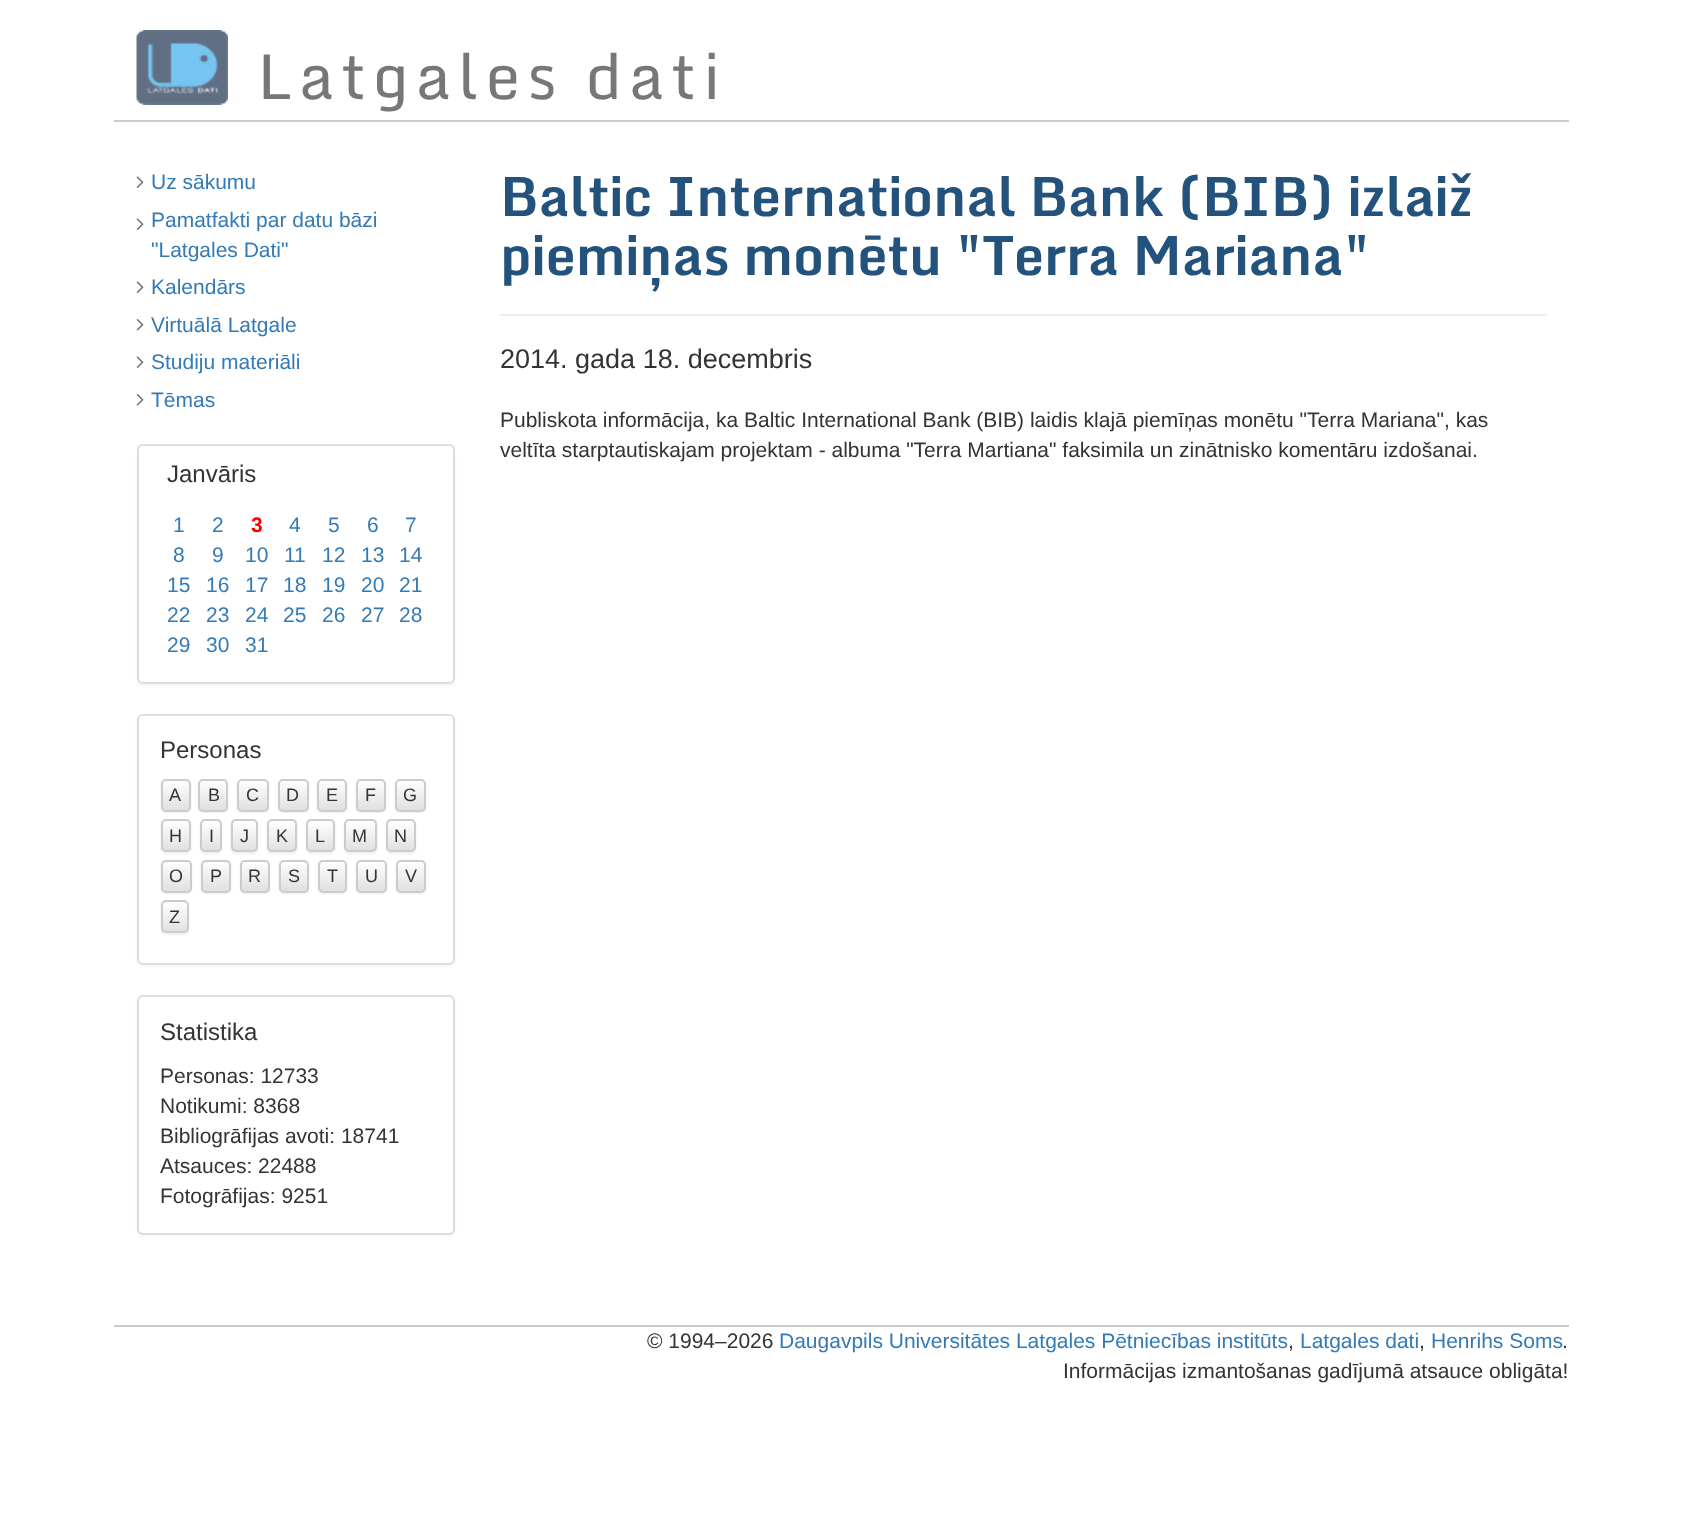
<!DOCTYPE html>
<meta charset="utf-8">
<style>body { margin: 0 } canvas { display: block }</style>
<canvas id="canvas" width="1681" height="1533"></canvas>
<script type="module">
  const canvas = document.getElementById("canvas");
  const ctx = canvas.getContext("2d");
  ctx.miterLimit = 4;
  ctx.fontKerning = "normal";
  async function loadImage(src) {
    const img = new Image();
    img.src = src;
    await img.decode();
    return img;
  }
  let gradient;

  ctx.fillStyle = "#ffffff";
  ctx.fillRect(0, 0, 1681, 1533);
  ctx.fillStyle = "#cccccc";
  ctx.fillRect(114, 120, 1455, 2);
  ctx.drawImage(await loadImage("img1.png"), 136, 30, 92, 75);
  ctx.letterSpacing = "6.25px";
  ctx.font = "63px Monda";
  ctx.fillStyle = "#777777";
  ctx.fillText("Latgales dati", 257, 99);
  ctx.drawImage(await loadImage("img2.png"), 136, 176, 8, 12);
  ctx.letterSpacing = "0px";
  ctx.font = "21px Liberation Sans";
  ctx.fillStyle = "#337ab7";
  ctx.fillText("Uz sākumu", 151, 189);
  ctx.drawImage(await loadImage("img2.png"), 136, 218, 8, 12);
  ctx.fillText("Pamatfakti par datu bāzi", 151, 227);
  ctx.fillText("\"Latgales Dati\"", 151, 257);
  ctx.drawImage(await loadImage("img2.png"), 136, 281, 8, 12);
  ctx.fillText("Kalendārs", 151, 294);
  ctx.drawImage(await loadImage("img3.png"), 136, 319, 8, 12);
  ctx.fillText("Virtuālā Latgale", 151, 332);
  ctx.drawImage(await loadImage("img2.png"), 136, 356, 8, 12);
  ctx.fillText("Studiju materiāli", 151, 369);
  ctx.drawImage(await loadImage("img3.png"), 136, 394, 8, 12);
  ctx.fillText("Tēmas", 151, 407);
  ctx.fillStyle = "rgba(0, 0, 0, 0.05)";
  ctx.filter = "blur(1.5px)";
  ctx.beginPath();
  ctx.roundRect(137, 446, 318, 240, 6);
  ctx.fill();
  ctx.filter = "none";
  ctx.fillStyle = "#ffffff";
  ctx.beginPath();
  ctx.roundRect(138, 445, 316, 238, 5);
  ctx.fill();
  ctx.strokeStyle = "#dddddd";
  ctx.lineWidth = 2;
  ctx.stroke();
  ctx.font = "24px Liberation Sans";
  ctx.fillStyle = "#333333";
  ctx.fillText("Janvāris", 167, 482);
  ctx.font = "21px Liberation Sans";
  ctx.fillStyle = "#337ab7";
  ctx.fillText("1", 173, 532);
  ctx.fillText("2", 212, 532);
  ctx.font = "bold 21px Liberation Sans";
  ctx.fillStyle = "#ff0000";
  ctx.fillText("3", 251, 532);
  ctx.font = "21px Liberation Sans";
  ctx.fillStyle = "#337ab7";
  ctx.fillText("4", 289, 532);
  ctx.fillText("5", 328, 532);
  ctx.fillText("6", 367, 532);
  ctx.fillText("7", 405, 532);
  ctx.fillText("8", 173, 562);
  ctx.fillText("9", 212, 562);
  ctx.fillText("10", 245, 562);
  ctx.fillText("11", 284, 562);
  ctx.fillText("12", 322, 562);
  ctx.fillText("13", 361, 562);
  ctx.fillText("14", 399, 562);
  ctx.fillText("15", 167, 592);
  ctx.fillText("16", 206, 592);
  ctx.fillText("17", 245, 592);
  ctx.fillText("18", 283, 592);
  ctx.fillText("19", 322, 592);
  ctx.fillText("20", 361, 592);
  ctx.fillText("21", 399, 592);
  ctx.fillText("22", 167, 622);
  ctx.fillText("23", 206, 622);
  ctx.fillText("24", 245, 622);
  ctx.fillText("25", 283, 622);
  ctx.fillText("26", 322, 622);
  ctx.fillText("27", 361, 622);
  ctx.fillText("28", 399, 622);
  ctx.fillText("29", 167, 652);
  ctx.fillText("30", 206, 652);
  ctx.fillText("31", 245, 652);
  ctx.fillStyle = "rgba(0, 0, 0, 0.05)";
  ctx.filter = "blur(1.5px)";
  ctx.beginPath();
  ctx.roundRect(137, 716, 318, 250, 6);
  ctx.fill();
  ctx.filter = "none";
  ctx.fillStyle = "#ffffff";
  ctx.beginPath();
  ctx.roundRect(138, 715, 316, 249, 5);
  ctx.fill();
  ctx.stroke();
  ctx.font = "24px Liberation Sans";
  ctx.fillStyle = "#333333";
  ctx.fillText("Personas", 160, 758);
  ctx.fillStyle = "rgba(0, 0, 0, 0.07)";
  ctx.filter = "blur(1px)";
  ctx.beginPath();
  ctx.roundRect(161, 780, 30, 33, 5);
  ctx.fill();
  ctx.filter = "none";
  ctx.save();
  ctx.beginPath();
  ctx.roundRect(161, 779, 30, 33, 5);
  ctx.clip();
  gradient = ctx.createLinearGradient(176, 780, 176, 810);
  gradient.addColorStop(0, "#ffffff");
  gradient.addColorStop(1, "#e0e0e0");
  ctx.fillStyle = gradient;
  ctx.fillRect(161, 780, 30, 30);
  ctx.restore();
  ctx.beginPath();
  ctx.roundRect(162, 780, 28, 31, 4);
  ctx.strokeStyle = "#cccccc";
  ctx.stroke();
  ctx.font = "18px Liberation Sans";
  ctx.fillStyle = "#333333";
  ctx.fillText("A", 169, 801);
  ctx.fillStyle = "rgba(0, 0, 0, 0.07)";
  ctx.filter = "blur(1px)";
  ctx.beginPath();
  ctx.roundRect(198, 780, 30, 33, 5);
  ctx.fill();
  ctx.filter = "none";
  ctx.save();
  ctx.beginPath();
  ctx.roundRect(198, 779, 30, 33, 5);
  ctx.clip();
  gradient = ctx.createLinearGradient(213, 780, 213, 810);
  gradient.addColorStop(0, "#ffffff");
  gradient.addColorStop(1, "#e0e0e0");
  ctx.fillStyle = gradient;
  ctx.fillRect(198, 780, 30, 30);
  ctx.restore();
  ctx.fillStyle = "rgba(255, 255, 255, 0.15)";
  ctx.beginPath();
  ctx.moveTo(202, 782);
  ctx.lineTo(224.5, 782);
  ctx.bezierCurveTo(227, 782.5, 226, 786.5, 226, 788);
  ctx.lineTo(226, 809.5);
  ctx.bezierCurveTo(227.5, 808, 227, 805, 227, 803);
  ctx.lineTo(227, 795);
  ctx.bezierCurveTo(227, 778, 230, 780, 213.5, 780);
  ctx.lineTo(206.5, 780);
  ctx.bezierCurveTo(202.5, 780, 200, 779.5, 200, 784);
  ctx.bezierCurveTo(200, 783, 201, 782, 202, 782);
  ctx.closePath();
  ctx.fill();
  ctx.beginPath();
  ctx.roundRect(199, 780, 28, 31, 4);
  ctx.stroke();
  ctx.fillStyle = "#333333";
  ctx.fillText("B", 208, 801);
  ctx.fillStyle = "rgba(0, 0, 0, 0.07)";
  ctx.filter = "blur(1px)";
  ctx.beginPath();
  ctx.roundRect(237, 780, 32, 33, 5);
  ctx.fill();
  ctx.filter = "none";
  ctx.save();
  ctx.beginPath();
  ctx.roundRect(237, 779, 32, 33, 5);
  ctx.clip();
  gradient = ctx.createLinearGradient(253, 780, 253, 810);
  gradient.addColorStop(0, "#ffffff");
  gradient.addColorStop(1, "#e0e0e0");
  ctx.fillStyle = gradient;
  ctx.fillRect(237, 780, 32, 30);
  ctx.restore();
  ctx.beginPath();
  ctx.roundRect(238, 780, 30, 31, 4);
  ctx.stroke();
  ctx.fillStyle = "#333333";
  ctx.fillText("C", 246, 801);
  ctx.fillStyle = "rgba(0, 0, 0, 0.07)";
  ctx.filter = "blur(1px)";
  ctx.beginPath();
  ctx.roundRect(278, 780, 31, 33, 5);
  ctx.fill();
  ctx.filter = "none";
  ctx.save();
  ctx.beginPath();
  ctx.roundRect(278, 779, 31, 33, 5);
  ctx.clip();
  gradient = ctx.createLinearGradient(293, 780, 293, 810);
  gradient.addColorStop(0, "#ffffff");
  gradient.addColorStop(1, "#e0e0e0");
  ctx.fillStyle = gradient;
  ctx.fillRect(278, 780, 31, 30);
  ctx.restore();
  ctx.beginPath();
  ctx.roundRect(279, 780, 29, 31, 4);
  ctx.stroke();
  ctx.fillStyle = "#333333";
  ctx.fillText("D", 286, 801);
  ctx.fillStyle = "rgba(0, 0, 0, 0.07)";
  ctx.filter = "blur(1px)";
  ctx.beginPath();
  ctx.roundRect(317, 780, 30, 33, 5);
  ctx.fill();
  ctx.filter = "none";
  ctx.save();
  ctx.beginPath();
  ctx.roundRect(317, 779, 30, 33, 5);
  ctx.clip();
  gradient = ctx.createLinearGradient(332, 780, 332, 810);
  gradient.addColorStop(0, "#ffffff");
  gradient.addColorStop(1, "#e0e0e0");
  ctx.fillStyle = gradient;
  ctx.fillRect(317, 780, 30, 30);
  ctx.restore();
  ctx.beginPath();
  ctx.roundRect(318, 780, 28, 31, 4);
  ctx.stroke();
  ctx.fillStyle = "#333333";
  ctx.fillText("E", 326, 801);
  ctx.fillStyle = "rgba(0, 0, 0, 0.07)";
  ctx.filter = "blur(1px)";
  ctx.beginPath();
  ctx.roundRect(356, 780, 30, 33, 5);
  ctx.fill();
  ctx.filter = "none";
  ctx.save();
  ctx.beginPath();
  ctx.roundRect(356, 779, 30, 33, 5);
  ctx.clip();
  gradient = ctx.createLinearGradient(371, 780, 371, 810);
  gradient.addColorStop(0, "#ffffff");
  gradient.addColorStop(1, "#e0e0e0");
  ctx.fillStyle = gradient;
  ctx.fillRect(356, 780, 30, 30);
  ctx.restore();
  ctx.beginPath();
  ctx.roundRect(357, 780, 28, 31, 4);
  ctx.stroke();
  ctx.fillStyle = "#333333";
  ctx.fillText("F", 365, 801);
  ctx.fillStyle = "rgba(0, 0, 0, 0.07)";
  ctx.filter = "blur(1px)";
  ctx.beginPath();
  ctx.roundRect(395, 780, 31, 33, 5);
  ctx.fill();
  ctx.filter = "none";
  ctx.save();
  ctx.beginPath();
  ctx.roundRect(395, 779, 31, 33, 5);
  ctx.clip();
  gradient = ctx.createLinearGradient(410, 780, 410, 810);
  gradient.addColorStop(0, "#ffffff");
  gradient.addColorStop(1, "#e0e0e0");
  ctx.fillStyle = gradient;
  ctx.fillRect(395, 780, 31, 30);
  ctx.restore();
  ctx.fillStyle = "rgba(255, 255, 255, 0.15)";
  ctx.beginPath();
  ctx.moveTo(399, 782);
  ctx.lineTo(422.5, 782);
  ctx.bezierCurveTo(425, 782.5, 424, 786.5, 424, 788);
  ctx.lineTo(424, 809.5);
  ctx.bezierCurveTo(425.5, 808, 425, 805, 425, 803);
  ctx.lineTo(425, 795);
  ctx.bezierCurveTo(425, 777.5, 427.5, 780, 410.5, 780);
  ctx.lineTo(403, 780);
  ctx.bezierCurveTo(399, 780, 396, 779.5, 396, 784);
  ctx.bezierCurveTo(396, 783, 397, 782, 399, 782);
  ctx.closePath();
  ctx.fill();
  ctx.beginPath();
  ctx.roundRect(396, 780, 29, 31, 4);
  ctx.stroke();
  ctx.fillStyle = "#333333";
  ctx.fillText("G", 403, 801);
  ctx.fillStyle = "rgba(0, 0, 0, 0.07)";
  ctx.filter = "blur(1px)";
  ctx.beginPath();
  ctx.roundRect(161, 821, 30, 33, 5);
  ctx.fill();
  ctx.filter = "none";
  ctx.save();
  ctx.beginPath();
  ctx.roundRect(161, 819, 30, 33, 5);
  ctx.clip();
  gradient = ctx.createLinearGradient(176, 821, 176, 851);
  gradient.addColorStop(0, "#ffffff");
  gradient.addColorStop(1, "#e0e0e0");
  ctx.fillStyle = gradient;
  ctx.fillRect(161, 821, 30, 30);
  ctx.restore();
  ctx.beginPath();
  ctx.roundRect(162, 820, 28, 31, 4);
  ctx.stroke();
  ctx.fillStyle = "#333333";
  ctx.fillText("H", 169, 842);
  ctx.fillStyle = "rgba(0, 0, 0, 0.07)";
  ctx.filter = "blur(1px)";
  ctx.beginPath();
  ctx.roundRect(200, 821, 22, 33, 5);
  ctx.fill();
  ctx.filter = "none";
  ctx.save();
  ctx.beginPath();
  ctx.roundRect(200, 819, 22, 33, 5);
  ctx.clip();
  gradient = ctx.createLinearGradient(211, 821, 211, 851);
  gradient.addColorStop(0, "#ffffff");
  gradient.addColorStop(1, "#e0e0e0");
  ctx.fillStyle = gradient;
  ctx.fillRect(200, 821, 22, 30);
  ctx.restore();
  ctx.fillStyle = "rgba(255, 255, 255, 0.15)";
  ctx.beginPath();
  ctx.moveTo(204, 822);
  ctx.lineTo(215.5, 822);
  ctx.bezierCurveTo(218.5, 822, 220, 822, 220, 825);
  ctx.lineTo(220, 850.5);
  ctx.bezierCurveTo(220.5, 850, 221, 849, 221, 848);
  ctx.lineTo(221, 824);
  ctx.bezierCurveTo(221, 822.5, 219.5, 821, 218, 821);
  ctx.lineTo(204, 821);
  ctx.bezierCurveTo(202.5, 821, 201, 822.5, 201, 824);
  ctx.lineTo(201, 825);
  ctx.bezierCurveTo(201, 823, 202, 822, 204, 822);
  ctx.closePath();
  ctx.fill();
  ctx.beginPath();
  ctx.roundRect(201, 820, 20, 31, 4);
  ctx.stroke();
  ctx.fillStyle = "#333333";
  ctx.fillText("I", 209, 842);
  ctx.fillStyle = "rgba(0, 0, 0, 0.07)";
  ctx.filter = "blur(1px)";
  ctx.beginPath();
  ctx.roundRect(231, 821, 27, 33, 5);
  ctx.fill();
  ctx.filter = "none";
  ctx.save();
  ctx.beginPath();
  ctx.roundRect(231, 819, 27, 33, 5);
  ctx.clip();
  gradient = ctx.createLinearGradient(245, 821, 245, 851);
  gradient.addColorStop(0, "#ffffff");
  gradient.addColorStop(1, "#e0e0e0");
  ctx.fillStyle = gradient;
  ctx.fillRect(231, 821, 27, 30);
  ctx.restore();
  ctx.fillStyle = "rgba(255, 255, 255, 0.15)";
  ctx.beginPath();
  ctx.moveTo(236, 822);
  ctx.lineTo(254.5, 822);
  ctx.bezierCurveTo(257, 822.5, 256, 828, 256, 829);
  ctx.lineTo(256, 850.5);
  ctx.bezierCurveTo(256.5, 850, 257, 849, 257, 848);
  ctx.lineTo(257, 824);
  ctx.bezierCurveTo(257, 822.5, 255.5, 821, 254, 821);
  ctx.lineTo(236, 821);
  ctx.bezierCurveTo(235, 821, 234, 821.5, 233.5, 822.5);
  ctx.closePath();
  ctx.fill();
  ctx.beginPath();
  ctx.roundRect(232, 820, 25, 31, 4);
  ctx.stroke();
  ctx.fillStyle = "#333333";
  ctx.fillText("J", 240, 842);
  ctx.fillStyle = "rgba(0, 0, 0, 0.07)";
  ctx.filter = "blur(1px)";
  ctx.beginPath();
  ctx.roundRect(267, 821, 30, 33, 5);
  ctx.fill();
  ctx.filter = "none";
  ctx.save();
  ctx.beginPath();
  ctx.roundRect(267, 819, 30, 33, 5);
  ctx.clip();
  gradient = ctx.createLinearGradient(282, 821, 282, 851);
  gradient.addColorStop(0, "#ffffff");
  gradient.addColorStop(1, "#e0e0e0");
  ctx.fillStyle = gradient;
  ctx.fillRect(267, 821, 30, 30);
  ctx.restore();
  ctx.beginPath();
  ctx.roundRect(268, 820, 28, 31, 4);
  ctx.stroke();
  ctx.fillStyle = "#333333";
  ctx.fillText("K", 276, 842);
  ctx.fillStyle = "rgba(0, 0, 0, 0.07)";
  ctx.filter = "blur(1px)";
  ctx.beginPath();
  ctx.roundRect(306, 821, 29, 33, 5);
  ctx.fill();
  ctx.filter = "none";
  ctx.save();
  ctx.beginPath();
  ctx.roundRect(306, 819, 29, 33, 5);
  ctx.clip();
  gradient = ctx.createLinearGradient(320, 821, 320, 851);
  gradient.addColorStop(0, "#ffffff");
  gradient.addColorStop(1, "#e0e0e0");
  ctx.fillStyle = gradient;
  ctx.fillRect(306, 821, 29, 30);
  ctx.restore();
  ctx.beginPath();
  ctx.roundRect(307, 820, 27, 31, 4);
  ctx.stroke();
  ctx.fillStyle = "#333333";
  ctx.fillText("L", 315, 842);
  ctx.fillStyle = "rgba(0, 0, 0, 0.07)";
  ctx.filter = "blur(1px)";
  ctx.beginPath();
  ctx.roundRect(344, 821, 33, 33, 5);
  ctx.fill();
  ctx.filter = "none";
  ctx.save();
  ctx.beginPath();
  ctx.roundRect(344, 819, 33, 33, 5);
  ctx.clip();
  gradient = ctx.createLinearGradient(360, 821, 360, 851);
  gradient.addColorStop(0, "#ffffff");
  gradient.addColorStop(1, "#e0e0e0");
  ctx.fillStyle = gradient;
  ctx.fillRect(344, 821, 33, 30);
  ctx.restore();
  ctx.beginPath();
  ctx.roundRect(345, 820, 31, 31, 4);
  ctx.stroke();
  ctx.fillStyle = "#333333";
  ctx.fillText("M", 352, 842);
  ctx.fillStyle = "rgba(0, 0, 0, 0.07)";
  ctx.filter = "blur(1px)";
  ctx.beginPath();
  ctx.roundRect(386, 821, 30, 33, 5);
  ctx.fill();
  ctx.filter = "none";
  ctx.save();
  ctx.beginPath();
  ctx.roundRect(386, 819, 30, 33, 5);
  ctx.clip();
  gradient = ctx.createLinearGradient(401, 821, 401, 851);
  gradient.addColorStop(0, "#ffffff");
  gradient.addColorStop(1, "#e0e0e0");
  ctx.fillStyle = gradient;
  ctx.fillRect(386, 821, 30, 30);
  ctx.restore();
  ctx.beginPath();
  ctx.roundRect(387, 820, 28, 31, 4);
  ctx.stroke();
  ctx.fillStyle = "#333333";
  ctx.fillText("N", 394, 842);
  ctx.fillStyle = "rgba(0, 0, 0, 0.07)";
  ctx.filter = "blur(1px)";
  ctx.beginPath();
  ctx.roundRect(161, 861, 31, 33, 5);
  ctx.fill();
  ctx.filter = "none";
  ctx.save();
  ctx.beginPath();
  ctx.roundRect(161, 860, 31, 33, 5);
  ctx.clip();
  gradient = ctx.createLinearGradient(176, 861, 176, 891);
  gradient.addColorStop(0, "#ffffff");
  gradient.addColorStop(1, "#e0e0e0");
  ctx.fillStyle = gradient;
  ctx.fillRect(161, 861, 31, 30);
  ctx.restore();
  ctx.beginPath();
  ctx.roundRect(162, 861, 29, 31, 4);
  ctx.stroke();
  ctx.fillStyle = "#333333";
  ctx.fillText("O", 169, 882);
  ctx.fillStyle = "rgba(0, 0, 0, 0.07)";
  ctx.filter = "blur(1px)";
  ctx.beginPath();
  ctx.roundRect(201, 861, 30, 33, 5);
  ctx.fill();
  ctx.filter = "none";
  ctx.save();
  ctx.beginPath();
  ctx.roundRect(201, 860, 30, 33, 5);
  ctx.clip();
  gradient = ctx.createLinearGradient(216, 861, 216, 891);
  gradient.addColorStop(0, "#ffffff");
  gradient.addColorStop(1, "#e0e0e0");
  ctx.fillStyle = gradient;
  ctx.fillRect(201, 861, 30, 30);
  ctx.restore();
  ctx.beginPath();
  ctx.roundRect(202, 861, 28, 31, 4);
  ctx.stroke();
  ctx.fillStyle = "#333333";
  ctx.fillText("P", 210, 882);
  ctx.fillStyle = "rgba(0, 0, 0, 0.07)";
  ctx.filter = "blur(1px)";
  ctx.beginPath();
  ctx.roundRect(240, 861, 30, 33, 5);
  ctx.fill();
  ctx.filter = "none";
  ctx.save();
  ctx.beginPath();
  ctx.roundRect(240, 860, 30, 33, 5);
  ctx.clip();
  gradient = ctx.createLinearGradient(255, 861, 255, 891);
  gradient.addColorStop(0, "#ffffff");
  gradient.addColorStop(1, "#e0e0e0");
  ctx.fillStyle = gradient;
  ctx.fillRect(240, 861, 30, 30);
  ctx.restore();
  ctx.beginPath();
  ctx.roundRect(241, 861, 28, 31, 4);
  ctx.stroke();
  ctx.fillStyle = "#333333";
  ctx.fillText("R", 248, 882);
  ctx.fillStyle = "rgba(0, 0, 0, 0.07)";
  ctx.filter = "blur(1px)";
  ctx.beginPath();
  ctx.roundRect(279, 861, 30, 33, 5);
  ctx.fill();
  ctx.filter = "none";
  ctx.save();
  ctx.beginPath();
  ctx.roundRect(279, 860, 30, 33, 5);
  ctx.clip();
  gradient = ctx.createLinearGradient(294, 861, 294, 891);
  gradient.addColorStop(0, "#ffffff");
  gradient.addColorStop(1, "#e0e0e0");
  ctx.fillStyle = gradient;
  ctx.fillRect(279, 861, 30, 30);
  ctx.restore();
  ctx.beginPath();
  ctx.roundRect(280, 861, 28, 31, 4);
  ctx.stroke();
  ctx.fillStyle = "#333333";
  ctx.fillText("S", 288, 882);
  ctx.fillStyle = "rgba(0, 0, 0, 0.07)";
  ctx.filter = "blur(1px)";
  ctx.beginPath();
  ctx.roundRect(318, 861, 29, 33, 5);
  ctx.fill();
  ctx.filter = "none";
  ctx.save();
  ctx.beginPath();
  ctx.roundRect(318, 860, 29, 33, 5);
  ctx.clip();
  gradient = ctx.createLinearGradient(332, 861, 332, 891);
  gradient.addColorStop(0, "#ffffff");
  gradient.addColorStop(1, "#e0e0e0");
  ctx.fillStyle = gradient;
  ctx.fillRect(318, 861, 29, 30);
  ctx.restore();
  ctx.beginPath();
  ctx.roundRect(319, 861, 27, 31, 4);
  ctx.stroke();
  ctx.fillStyle = "#333333";
  ctx.fillText("T", 327, 882);
  ctx.fillStyle = "rgba(0, 0, 0, 0.07)";
  ctx.filter = "blur(1px)";
  ctx.beginPath();
  ctx.roundRect(356, 861, 31, 33, 5);
  ctx.fill();
  ctx.filter = "none";
  ctx.save();
  ctx.beginPath();
  ctx.roundRect(356, 860, 31, 33, 5);
  ctx.clip();
  gradient = ctx.createLinearGradient(371, 861, 371, 891);
  gradient.addColorStop(0, "#ffffff");
  gradient.addColorStop(1, "#e0e0e0");
  ctx.fillStyle = gradient;
  ctx.fillRect(356, 861, 31, 30);
  ctx.restore();
  ctx.beginPath();
  ctx.roundRect(357, 861, 29, 31, 4);
  ctx.stroke();
  ctx.fillStyle = "#333333";
  ctx.fillText("U", 365, 882);
  ctx.fillStyle = "rgba(0, 0, 0, 0.07)";
  ctx.filter = "blur(1px)";
  ctx.beginPath();
  ctx.roundRect(396, 861, 30, 33, 5);
  ctx.fill();
  ctx.filter = "none";
  ctx.save();
  ctx.beginPath();
  ctx.roundRect(396, 860, 30, 33, 5);
  ctx.clip();
  gradient = ctx.createLinearGradient(411, 861, 411, 891);
  gradient.addColorStop(0, "#ffffff");
  gradient.addColorStop(1, "#e0e0e0");
  ctx.fillStyle = gradient;
  ctx.fillRect(396, 861, 30, 30);
  ctx.restore();
  ctx.beginPath();
  ctx.roundRect(397, 861, 28, 31, 4);
  ctx.stroke();
  ctx.fillStyle = "#333333";
  ctx.fillText("V", 405, 882);
  ctx.fillStyle = "rgba(0, 0, 0, 0.07)";
  ctx.filter = "blur(1px)";
  ctx.beginPath();
  ctx.roundRect(161, 902, 28, 33, 5);
  ctx.fill();
  ctx.filter = "none";
  ctx.save();
  ctx.beginPath();
  ctx.roundRect(161, 900, 28, 33, 5);
  ctx.clip();
  gradient = ctx.createLinearGradient(175, 902, 175, 932);
  gradient.addColorStop(0, "#ffffff");
  gradient.addColorStop(1, "#e0e0e0");
  ctx.fillStyle = gradient;
  ctx.fillRect(161, 902, 28, 30);
  ctx.restore();
  ctx.beginPath();
  ctx.roundRect(162, 901, 26, 31, 4);
  ctx.stroke();
  ctx.fillStyle = "#333333";
  ctx.fillText("Z", 169, 923);
  ctx.fillStyle = "rgba(0, 0, 0, 0.05)";
  ctx.filter = "blur(1.5px)";
  ctx.beginPath();
  ctx.roundRect(137, 996, 318, 240, 6);
  ctx.fill();
  ctx.filter = "none";
  ctx.fillStyle = "#ffffff";
  ctx.beginPath();
  ctx.roundRect(138, 996, 316, 238, 5);
  ctx.fill();
  ctx.strokeStyle = "#dddddd";
  ctx.stroke();
  ctx.font = "24px Liberation Sans";
  ctx.fillStyle = "#333333";
  ctx.fillText("Statistika", 160, 1040);
  ctx.font = "21px Liberation Sans";
  ctx.fillText("Personas: 12733", 160, 1083);
  ctx.fillText("Notikumi: 8368", 160, 1113);
  ctx.fillText("Bibliogrāfijas avoti: 18741", 160, 1143);
  ctx.fillText("Atsauces: 22488", 160, 1173);
  ctx.fillText("Fotogrāfijas: 9251", 160, 1203);
  ctx.fillStyle = "#eeeeee";
  ctx.fillRect(500, 314, 1047, 2);
  ctx.font = "bold 54px Monda";
  ctx.fillStyle = "#23527c";
  ctx.fillText("Baltic International Bank (BIB) izlaiž", 500, 216);
  ctx.fillText("piemiņas monētu \"Terra Mariana\"", 500, 275);
  ctx.font = "27px Liberation Sans";
  ctx.fillStyle = "#333333";
  ctx.fillText("2014. gada 18. decembris", 500, 368);
  ctx.font = "21px Liberation Sans";
  ctx.fillText("Publiskota informācija, ka Baltic International Bank (BIB) laidis klajā piemīņas monētu \"Terra Mariana\", kas", 500, 427);
  ctx.fillText("veltīta starptautiskajam projektam - albuma \"Terra Martiana\" faksimila un zinātnisko komentāru izdošanai.", 500, 457);
  ctx.fillStyle = "#cccccc";
  ctx.fillRect(114, 1325, 1455, 2);
  ctx.fillStyle = "#333333";
  ctx.fillText("© 1994–2026", 647, 1348);
  ctx.fillStyle = "#337ab7";
  ctx.fillText("Daugavpils Universitātes Latgales Pētniecības institūts", 779, 1348);
  ctx.fillStyle = "#333333";
  ctx.fillText(",", 1288, 1348);
  ctx.fillStyle = "#337ab7";
  ctx.fillText("Latgales dati", 1300, 1348);
  ctx.fillStyle = "#333333";
  ctx.fillText(",", 1419, 1348);
  ctx.fillStyle = "#337ab7";
  ctx.fillText("Henrihs Soms", 1431, 1348);
  ctx.fillStyle = "#333333";
  ctx.fillText(".", 1562, 1348);
  ctx.fillText("Informācijas izmantošanas gadījumā atsauce obligāta!", 1063, 1378);
</script>
